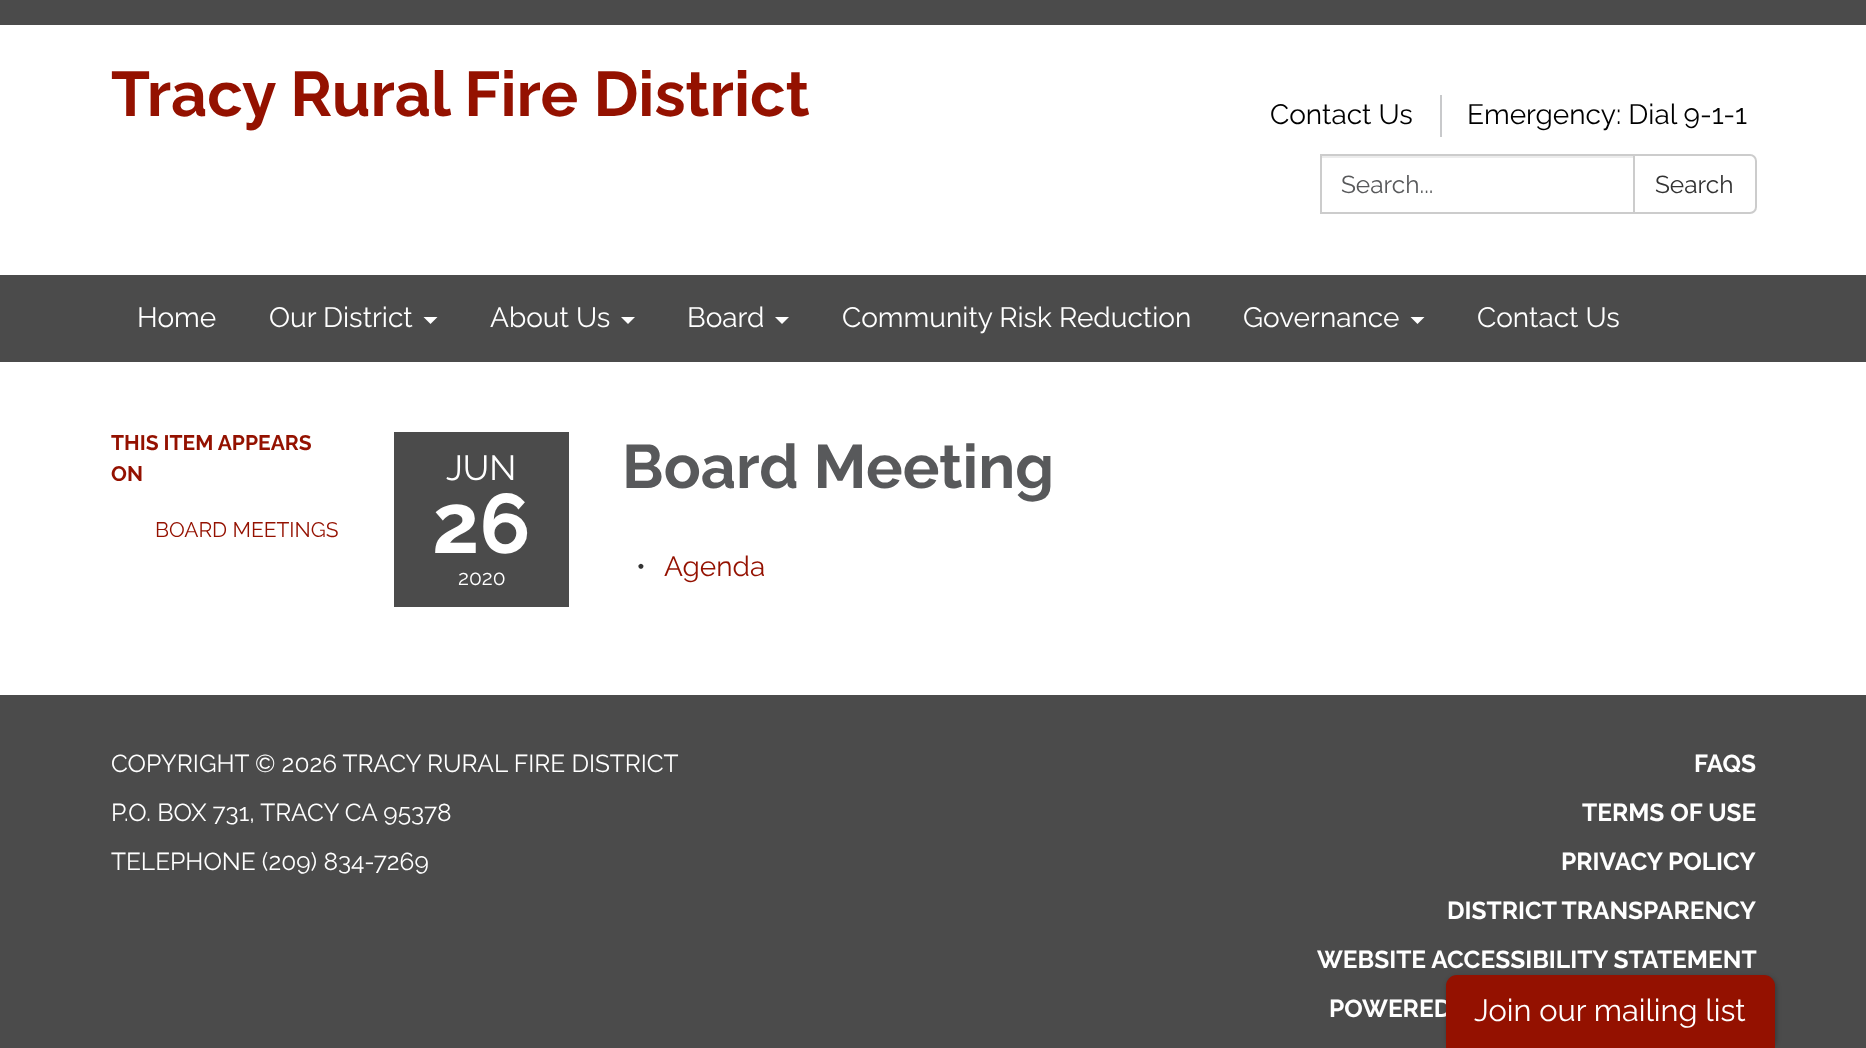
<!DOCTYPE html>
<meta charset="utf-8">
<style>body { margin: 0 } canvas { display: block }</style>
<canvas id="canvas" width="1866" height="1048"></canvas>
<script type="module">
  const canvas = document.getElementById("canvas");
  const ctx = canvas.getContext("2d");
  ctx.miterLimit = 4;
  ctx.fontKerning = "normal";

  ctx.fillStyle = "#4b4b4b";
  ctx.fillRect(0, 0, 1866, 1048);
  ctx.fillStyle = "#ffffff";
  ctx.fillRect(0, 25, 1866, 250);
  ctx.font = "bold 63px Raleway";
  ctx.fillStyle = "#941100";
  ctx.fillText("Tracy Rural Fire District", 111, 116);
  ctx.font = "28px Raleway";
  ctx.fillStyle = "#000000";
  ctx.fillText("Contact Us", 1270, 124);
  ctx.fillStyle = "#c8c9cb";
  ctx.fillRect(1440, 95, 2, 42);
  ctx.fillStyle = "#000000";
  ctx.fillText("Emergency: Dial 9-1-1", 1467, 124);
  ctx.fillStyle = "#ececec";
  ctx.fillRect(1321, 156, 312, 2);
  ctx.strokeStyle = "#cccccc";
  ctx.lineWidth = 2;
  ctx.strokeRect(1321, 155, 313, 58);
  ctx.font = "24.5px Raleway";
  ctx.fillStyle = "#58595b";
  ctx.fillText("Search...", 1341, 193);
  ctx.fillStyle = "#ffffff";
  ctx.beginPath();
  ctx.roundRect(1634, 155, 122, 58, [0, 6, 6, 0]);
  ctx.fill();
  ctx.stroke();
  ctx.fillStyle = "#333333";
  ctx.fillText("Search", 1655, 193);
  ctx.font = "28px Raleway";
  ctx.fillStyle = "#ffffff";
  ctx.fillText("Home", 137, 327);
  ctx.fillText("Our District", 269, 327);
  ctx.beginPath();
  ctx.moveTo(423.5, 317);
  ctx.lineTo(437.5, 317);
  ctx.lineTo(430.5, 324);
  ctx.closePath();
  ctx.fill();
  ctx.fillText("About Us", 490, 327);
  ctx.beginPath();
  ctx.moveTo(621, 317);
  ctx.lineTo(635, 317);
  ctx.lineTo(628, 324);
  ctx.closePath();
  ctx.fill();
  ctx.fillText("Board", 687, 327);
  ctx.beginPath();
  ctx.moveTo(775, 317);
  ctx.lineTo(789, 317);
  ctx.lineTo(782, 324);
  ctx.closePath();
  ctx.fill();
  ctx.fillText("Community Risk Reduction", 842, 327);
  ctx.fillText("Governance", 1243, 327);
  ctx.beginPath();
  ctx.moveTo(1410.5, 317);
  ctx.lineTo(1424.5, 317);
  ctx.lineTo(1417.5, 324);
  ctx.closePath();
  ctx.fill();
  ctx.fillText("Contact Us", 1477, 327);
  ctx.fillRect(0, 362, 1866, 333);
  ctx.font = "bold 21px Raleway";
  ctx.fillStyle = "#941100";
  ctx.fillText("THIS ITEM APPEARS", 111, 450);
  ctx.fillText("ON", 111, 481);
  ctx.font = "21px Raleway";
  ctx.fillText("BOARD MEETINGS", 155, 537);
  ctx.fillStyle = "#4b4b4b";
  ctx.fillRect(394, 432, 175, 175);
  ctx.font = "35px Raleway";
  ctx.fillStyle = "#ffffff";
  ctx.fillText("JUN", 446, 480);
  ctx.font = "bold 84px Raleway";
  ctx.fillText("26", 432, 553);
  ctx.font = "21px Raleway";
  ctx.fillText("2020", 458, 585);
  ctx.font = "bold 61.25px Raleway";
  ctx.fillStyle = "#58595b";
  ctx.fillText("Board Meeting", 622, 488);
  ctx.font = "28px Raleway";
  ctx.fillStyle = "#333333";
  ctx.fillText("•", 636, 576);
  ctx.fillStyle = "#941100";
  ctx.fillText("Agenda", 664, 576);
  ctx.font = "24.5px Raleway";
  ctx.fillStyle = "#ffffff";
  ctx.fillText("COPYRIGHT © 2026 TRACY RURAL FIRE DISTRICT", 111, 772);
  ctx.fillText("P.O. BOX 731, TRACY CA 95378", 111, 821);
  ctx.fillText("TELEPHONE (209) 834-7269", 111, 870);
  ctx.font = "bold 24.5px Raleway";
  ctx.fillText("FAQS", 1694, 772);
  ctx.fillText("TERMS OF USE", 1582, 821);
  ctx.fillText("PRIVACY POLICY", 1561, 870);
  ctx.fillText("DISTRICT TRANSPARENCY", 1447, 919);
  ctx.fillText("WEBSITE ACCESSIBILITY STATEMENT", 1317, 968);
  ctx.fillText("POWERED", 1329, 1017);
  ctx.fillStyle = "rgba(0, 0, 0, 0.3)";
  ctx.filter = "blur(2.5px)";
  ctx.beginPath();
  ctx.roundRect(1447, 977, 329, 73, 11);
  ctx.fill();
  ctx.filter = "none";
  ctx.fillStyle = "#941100";
  ctx.beginPath();
  ctx.roundRect(1446, 975, 329, 73, [11, 11, 0, 0]);
  ctx.fill();
  ctx.font = "30.75px Raleway";
  ctx.fillStyle = "#ffffff";
  ctx.fillText("Join our mailing list", 1474, 1021);
</script>
